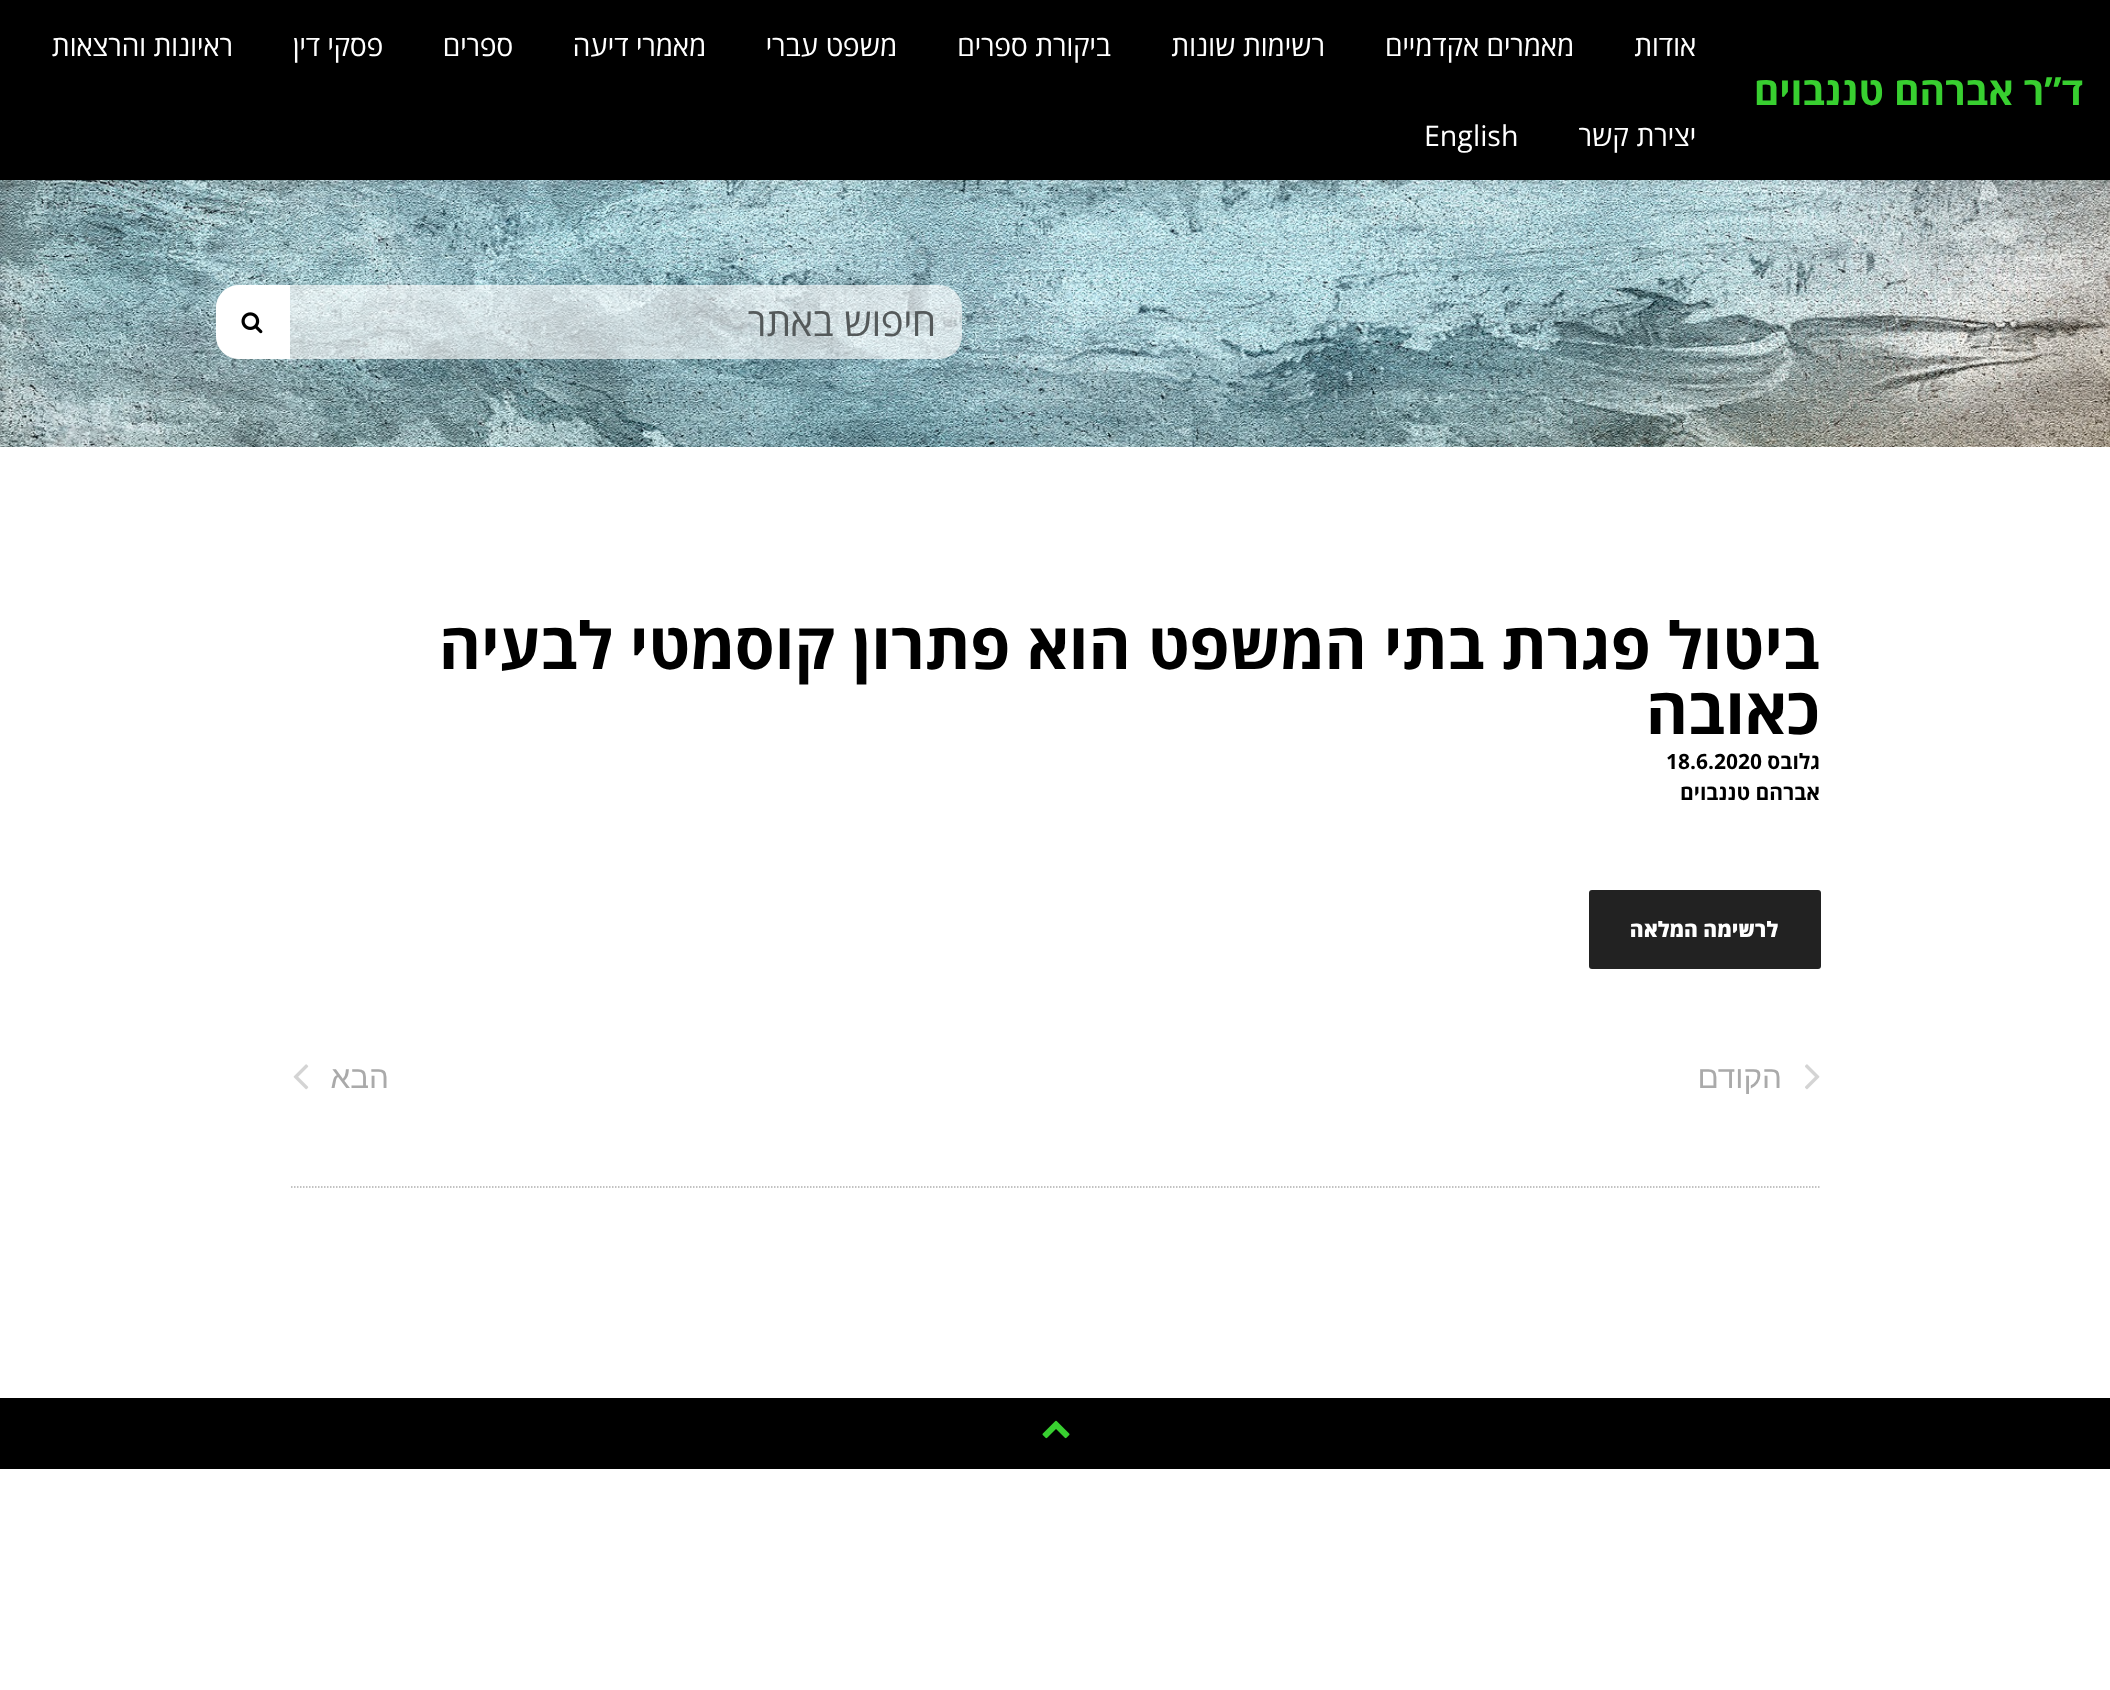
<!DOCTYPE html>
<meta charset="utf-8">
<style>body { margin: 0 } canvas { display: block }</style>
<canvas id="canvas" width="2110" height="1690"></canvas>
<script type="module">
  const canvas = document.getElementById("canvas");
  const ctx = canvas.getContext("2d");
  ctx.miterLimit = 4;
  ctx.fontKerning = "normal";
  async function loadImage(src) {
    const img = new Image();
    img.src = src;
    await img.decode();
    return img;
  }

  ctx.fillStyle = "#ffffff";
  ctx.fillRect(0, 0, 2110, 1690);
  ctx.fillStyle = "#000000";
  ctx.fillRect(0, 0, 2110, 180);
  ctx.direction = "rtl";
  ctx.font = "bold 39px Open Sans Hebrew";
  ctx.fillStyle = "#38cf30";
  ctx.fillText("ד”ר אברהם טננבוים", 2083, 105);
  ctx.font = "28.5px Open Sans Hebrew";
  ctx.fillStyle = "#ffffff";
  ctx.fillText("אודות", 1696, 56);
  ctx.fillText("מאמרים אקדמיים", 1574, 56);
  ctx.fillText("רשימות שונות", 1325, 56);
  ctx.fillText("ביקורת ספרים", 1111, 56);
  ctx.fillText("משפט עברי", 897, 56);
  ctx.fillText("מאמרי דיעה", 706, 56);
  ctx.fillText("ספרים", 513, 56);
  ctx.fillText("פסקי דין", 383, 56);
  ctx.fillText("ראיונות והרצאות", 233, 56);
  ctx.fillText("יצירת קשר", 1696, 146);
  ctx.direction = "ltr";
  ctx.fillText("English", 1424, 146);
  ctx.drawImage(await loadImage("img1.png"), 0, 180, 2110, 267);
  ctx.fillStyle = "rgba(255, 255, 255, 0.64)";
  ctx.beginPath();
  ctx.roundRect(216, 285, 746, 74, 23);
  ctx.fill();
  ctx.direction = "rtl";
  ctx.font = "39px Open Sans Hebrew";
  ctx.fillStyle = "#54595a";
  ctx.fillText("חיפוש באתר", 936, 336);
  ctx.fillStyle = "#ffffff";
  ctx.beginPath();
  ctx.roundRect(216, 285, 74, 74, [23, 0, 0, 23]);
  ctx.fill();
  ctx.drawImage(await loadImage("img2.png"), 241, 312, 22, 22);
  ctx.font = "bold 64.5px Open Sans Hebrew";
  ctx.fillStyle = "#000000";
  ctx.fillText("ביטול פגרת בתי המשפט הוא פתרון קוסמטי לבעיה", 1820, 669);
  ctx.fillText("כאובה", 1820, 734);
  ctx.font = "bold 21px Open Sans Hebrew";
  ctx.fillText("גלובס", 1820, 769);
  ctx.direction = "ltr";
  ctx.fillText("18.6.2020", 1666, 769);
  ctx.direction = "rtl";
  ctx.fillText("אברהם טננבוים", 1820, 800);
  ctx.fillStyle = "#222222";
  ctx.beginPath();
  ctx.roundRect(1589, 890, 232, 79, 3);
  ctx.fill();
  ctx.font = "800 21px Open Sans Hebrew";
  ctx.fillStyle = "#ffffff";
  ctx.fillText("לרשימה המלאה", 1778, 937);
  ctx.drawImage(await loadImage("img3.png"), 1805, 1064, 15, 26);
  ctx.font = "31.5px Liberation Sans";
  ctx.fillStyle = "#aaaaaa";
  ctx.fillText("הקודם", 1782, 1088);
  ctx.fillText("הבא", 389, 1088);
  ctx.drawImage(await loadImage("img4.png"), 293, 1064, 16, 26);
  ctx.beginPath();
  ctx.moveTo(291, 1187);
  ctx.lineTo(1821, 1187);
  ctx.strokeStyle = "#afafaf";
  ctx.lineWidth = 1.5;
  ctx.setLineDash([1.5, 1.5]);
  ctx.stroke();
  ctx.fillStyle = "#000000";
  ctx.fillRect(0, 1398, 2110, 71);
  ctx.drawImage(await loadImage("img5.png"), 1042, 1420, 28, 19);
</script>
